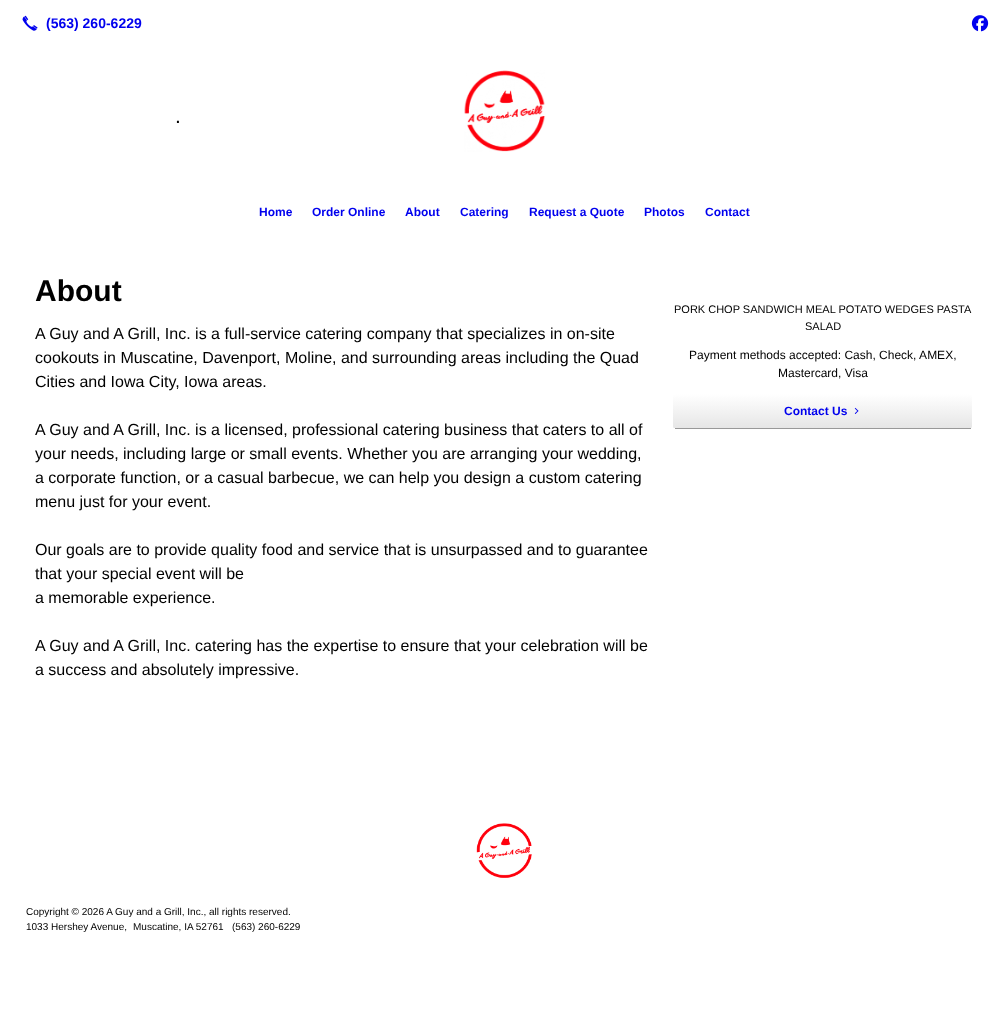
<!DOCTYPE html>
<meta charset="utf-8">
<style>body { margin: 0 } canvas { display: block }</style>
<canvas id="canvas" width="1008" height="1013"></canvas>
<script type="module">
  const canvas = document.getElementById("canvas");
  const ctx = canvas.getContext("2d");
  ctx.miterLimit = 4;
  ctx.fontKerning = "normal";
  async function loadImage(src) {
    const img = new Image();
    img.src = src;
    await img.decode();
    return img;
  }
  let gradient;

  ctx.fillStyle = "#ffffff";
  ctx.fillRect(0, 0, 1008, 1013);
  ctx.drawImage(await loadImage("img1.png"), 22, 15, 16, 16);
  ctx.font = "bold 14px Liberation Sans";
  ctx.fillStyle = "#0000ee";
  ctx.fillText("(563) 260-6229", 46, 28);
  ctx.drawImage(await loadImage("img2.png"), 971, 15, 18, 17);
  ctx.font = "21px Liberation Sans";
  ctx.fillStyle = "#000000";
  ctx.fillText(".", 175, 123);
  ctx.drawImage(await loadImage("img3.png"), 464, 70, 82, 82);
  ctx.font = "bold 12px Liberation Sans";
  ctx.fillStyle = "#0000ee";
  ctx.fillText("Home", 259, 216);
  ctx.fillText("Order Online", 312, 216);
  ctx.fillText("About", 405, 216);
  ctx.fillText("Catering", 460, 216);
  ctx.fillText("Request a Quote", 529, 216);
  ctx.fillText("Photos", 644, 216);
  ctx.fillText("Contact", 705, 216);
  ctx.font = "bold 30px Liberation Sans";
  ctx.fillStyle = "#000000";
  ctx.fillText("About", 35, 301);
  ctx.font = "16px Liberation Sans";
  ctx.fillText("A Guy and A Grill, Inc. is a full-service catering company that specializes in on-site", 35, 339);
  ctx.fillText("cookouts in Muscatine, Davenport, Moline, and surrounding areas including the Quad", 35, 363);
  ctx.fillText("Cities and Iowa City, Iowa areas.", 35, 387);
  ctx.fillText("A Guy and A Grill, Inc. is a licensed, professional catering business that caters to all of", 35, 435);
  ctx.fillText("your needs, including large or small events. Whether you are arranging your wedding,", 35, 459);
  ctx.fillText("a corporate function, or a casual barbecue, we can help you design a custom catering", 35, 483);
  ctx.fillText("menu just for your event.", 35, 507);
  ctx.fillText("Our goals are to provide quality food and service that is unsurpassed and to guarantee", 35, 555);
  ctx.fillText("that your special event will be", 35, 579);
  ctx.fillText("a memorable experience.", 35, 603);
  ctx.fillText("A Guy and A Grill, Inc. catering has the expertise to ensure that your celebration will be", 35, 651);
  ctx.fillText("a success and absolutely impressive.", 35, 675);
  ctx.font = "11px Liberation Sans";
  ctx.fillText("PORK CHOP SANDWICH MEAL POTATO WEDGES PASTA", 674, 313);
  ctx.fillText("SALAD", 805, 330);
  ctx.font = "12px Liberation Sans";
  ctx.fillText("Payment methods accepted: Cash, Check, AMEX,", 689, 359);
  ctx.fillText("Mastercard, Visa", 778, 377);
  ctx.save();
  ctx.beginPath();
  ctx.roundRect(673, 394, 299, 35, 3);
  ctx.clip();
  gradient = ctx.createLinearGradient(823, 394, 823, 428);
  gradient.addColorStop(0, "#ffffff");
  gradient.addColorStop(1, "#e6e6e6");
  ctx.fillStyle = gradient;
  ctx.beginPath();
  ctx.roundRect(673, 394, 299, 34, [3, 3, 0, 0]);
  ctx.fill();
  ctx.restore();
  ctx.fillStyle = "#999999";
  ctx.fillRect(675, 428, 296, 1);
  ctx.font = "bold 12px Liberation Sans";
  ctx.fillStyle = "#0000ee";
  ctx.fillText("Contact Us", 784, 415);
  ctx.font = "bold 9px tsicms";
  ctx.fillText(">", 852, 415);
  ctx.drawImage(await loadImage("img4.png"), 476, 823, 56, 55);
  ctx.font = "10px Liberation Sans";
  ctx.fillStyle = "#000000";
  ctx.fillText("Copyright © 2026 A Guy and a Grill, Inc., all rights reserved.", 26, 915);
  ctx.fillText("1033 Hershey Avenue,", 26, 930);
  ctx.fillText("Muscatine, IA 52761", 133, 930);
  ctx.fillText("(563) 260-6229", 232, 930);
</script>
